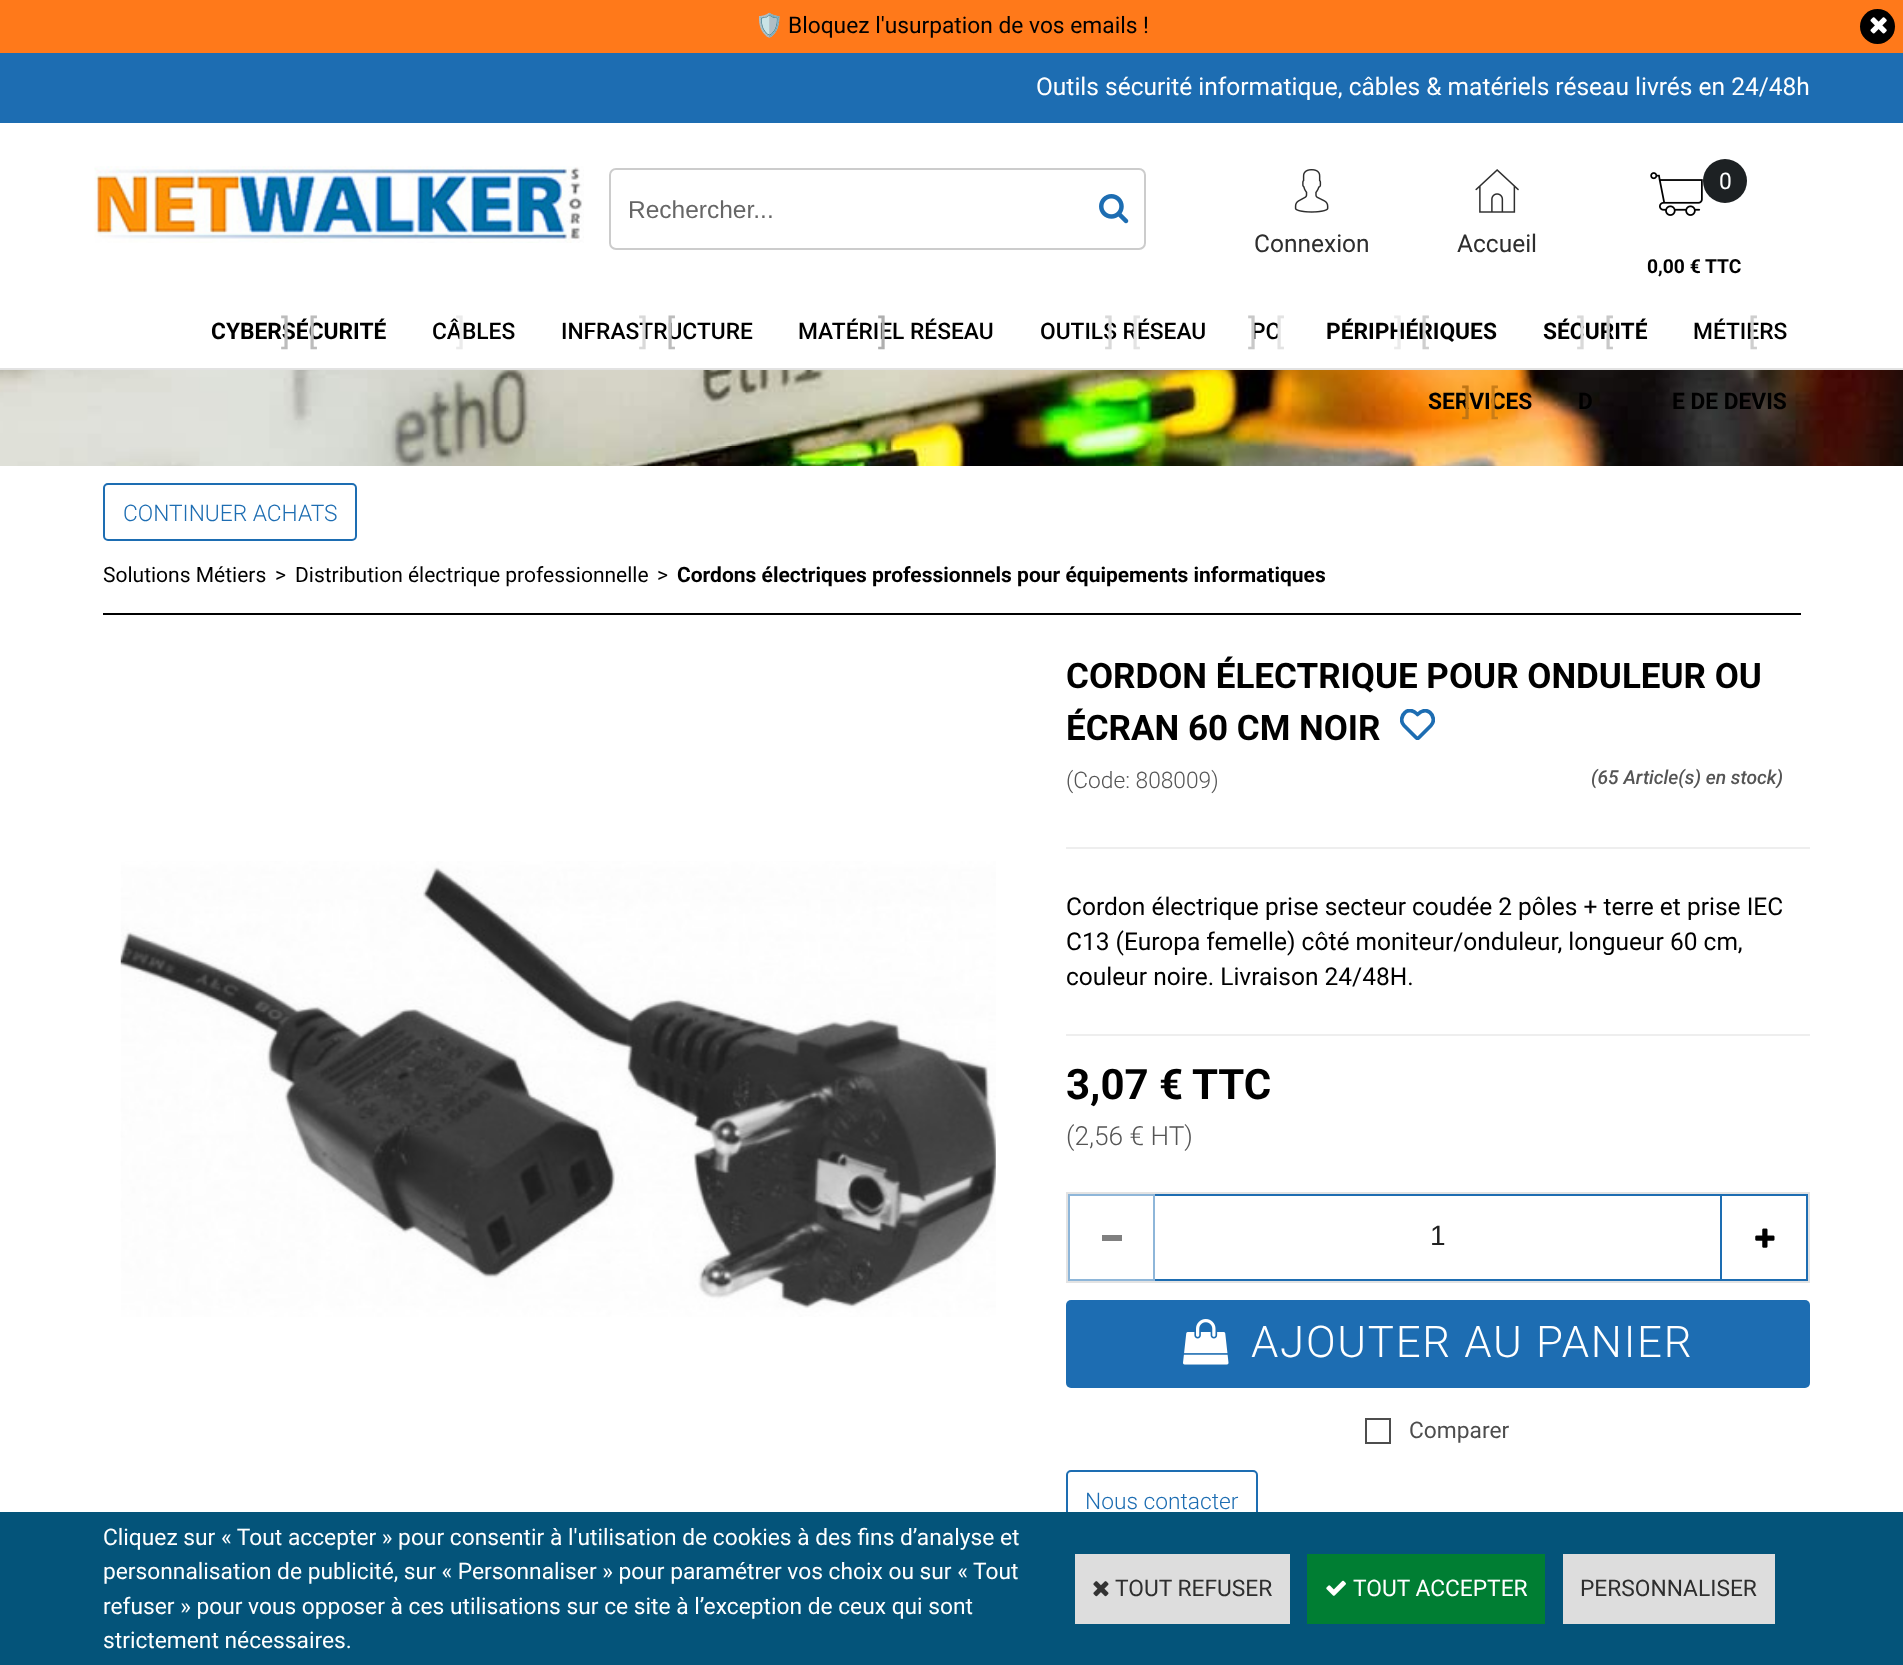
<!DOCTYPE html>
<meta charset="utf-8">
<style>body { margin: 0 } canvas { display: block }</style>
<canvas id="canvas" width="1903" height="1665"></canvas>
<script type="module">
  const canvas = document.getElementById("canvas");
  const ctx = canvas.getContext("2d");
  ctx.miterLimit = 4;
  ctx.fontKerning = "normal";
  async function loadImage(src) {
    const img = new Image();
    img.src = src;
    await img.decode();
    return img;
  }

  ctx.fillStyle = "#ffffff";
  ctx.fillRect(0, 0, 1903, 1665);
  ctx.drawImage(await loadImage("img1.png"), 0, 370, 1903, 96);
  ctx.fillStyle = "#ff791a";
  ctx.fillRect(0, 0, 1903, 53);
  ctx.font = "22.75px Noto Color Emoji";
  ctx.fillStyle = "#000000";
  ctx.fillText("🛡️", 755, 33);
  ctx.font = "22.75px Roboto";
  ctx.fillText("Bloquez l'usurpation de vos emails !️", 788, 33);
  ctx.beginPath();
  ctx.arc(1877.5, 26.5, 17.5, 0, Math.PI * 2);
  ctx.fill();
  ctx.drawImage(await loadImage("img2.png"), 1870, 17, 17, 17);
  ctx.fillStyle = "#1d6db2";
  ctx.fillRect(0, 53, 1903, 70);
  ctx.fillStyle = "#e2e2e2";
  ctx.fillRect(0, 368, 1903, 2);
  ctx.font = "24.5px Roboto";
  ctx.fillStyle = "#ffffff";
  ctx.fillText("Outils sécurité informatique, câbles & matériels réseau livrés en 24/48h", 1036, 95);
  ctx.drawImage(await loadImage("img3.png"), 94, 166, 490, 77);
  ctx.beginPath();
  ctx.roundRect(610, 169, 535, 80, 6);
  ctx.strokeStyle = "#cccccc";
  ctx.lineWidth = 2;
  ctx.stroke();
  ctx.font = "24.5px Liberation Sans";
  ctx.fillStyle = "#666666";
  ctx.fillText("Rechercher...", 628, 218);
  ctx.drawImage(await loadImage("img4.png"), 1099, 194, 30, 30);
  ctx.drawImage(await loadImage("img5.png"), 1294, 169, 35, 44);
  ctx.font = "24.5px Roboto";
  ctx.fillStyle = "#2e2e2e";
  ctx.fillText("Connexion", 1254, 252);
  ctx.drawImage(await loadImage("img6.png"), 1475, 169, 44, 44);
  ctx.fillText("Accueil", 1457, 252);
  ctx.drawImage(await loadImage("img7.png"), 1650, 172, 53, 44);
  ctx.fillStyle = "#1d2123";
  ctx.beginPath();
  ctx.arc(1725, 181, 22, 0, Math.PI * 2);
  ctx.fill();
  ctx.font = "22.75px Roboto";
  ctx.fillStyle = "#ffffff";
  ctx.fillText("0", 1719, 189);
  ctx.font = "bold 19.25px Roboto";
  ctx.fillStyle = "#000000";
  ctx.fillText("0,00 €", 1647, 273);
  ctx.fillText("TTC", 1705, 273);
  ctx.font = "bold 22.75px Roboto";
  ctx.fillText("CYBERSÉCURITÉ", 211, 339);
  ctx.font = "35px Roboto";
  ctx.fillStyle = "#bcbcbc";
  ctx.fillText("]", 281, 344);
  ctx.fillText("[", 308, 344);
  ctx.font = "500 22.75px Roboto";
  ctx.fillStyle = "#000000";
  ctx.fillText("CÂBLES", 432, 339);
  ctx.font = "35px Roboto";
  ctx.fillStyle = "#ebebeb";
  ctx.fillText("]", 456, 344);
  ctx.font = "500 22.75px Roboto";
  ctx.fillStyle = "#000000";
  ctx.fillText("INFRASTRUCTURE", 561, 339);
  ctx.font = "35px Roboto";
  ctx.fillStyle = "#d9d9d9";
  ctx.fillText("]", 639, 344);
  ctx.fillStyle = "#bcbcbc";
  ctx.fillText("[", 666, 344);
  ctx.font = "500 22.75px Roboto";
  ctx.fillStyle = "#000000";
  ctx.fillText("MATÉRIEL RÉSEAU", 798, 339);
  ctx.font = "35px Roboto";
  ctx.fillStyle = "#afafaf";
  ctx.fillText("]", 878, 344);
  ctx.font = "500 22.75px Roboto";
  ctx.fillStyle = "#000000";
  ctx.fillText("OUTILS RÉSEAU", 1040, 339);
  ctx.font = "35px Roboto";
  ctx.fillStyle = "#d9d9d9";
  ctx.fillText("]", 1105, 344);
  ctx.fillStyle = "#e3e3e3";
  ctx.fillText("[", 1131, 344);
  ctx.font = "500 22.75px Roboto";
  ctx.fillStyle = "#000000";
  ctx.fillText("PC", 1251, 339);
  ctx.font = "35px Roboto";
  ctx.fillStyle = "#c8c8c8";
  ctx.fillText("]", 1248, 344);
  ctx.fillStyle = "#e3e3e3";
  ctx.fillText("[", 1275, 344);
  ctx.font = "bold 22.75px Roboto";
  ctx.fillStyle = "#000000";
  ctx.fillText("PÉRIPHÉRIQUES", 1326, 339);
  ctx.font = "35px Roboto";
  ctx.fillStyle = "#ebebeb";
  ctx.fillText("]", 1394, 344);
  ctx.fillStyle = "#cecece";
  ctx.fillText("[", 1420, 344);
  ctx.font = "bold 22.75px Roboto";
  ctx.fillStyle = "#000000";
  ctx.fillText("SÉCURITÉ", 1543, 339);
  ctx.font = "35px Roboto";
  ctx.fillStyle = "#d9d9d9";
  ctx.fillText("]", 1577, 344);
  ctx.fillStyle = "#c8c8c8";
  ctx.fillText("[", 1604, 344);
  ctx.font = "500 22.75px Roboto";
  ctx.fillStyle = "#000000";
  ctx.fillText("MÉTIERS", 1693, 339);
  ctx.font = "35px Roboto";
  ctx.fillStyle = "#cecece";
  ctx.fillText("[", 1748, 344);
  ctx.font = "bold 22.75px Roboto";
  ctx.fillStyle = "#000000";
  ctx.fillText("SERVICES", 1428, 409);
  ctx.font = "35px Roboto";
  ctx.fillStyle = "#bf7515";
  ctx.fillText("]", 1462, 414);
  ctx.fillStyle = "#ca7d17";
  ctx.fillText("[", 1489, 414);
  ctx.font = "bold 22.75px Roboto";
  ctx.fillStyle = "#000000";
  ctx.fillText("D", 1578, 409);
  ctx.fillText("E DE DEVIS", 1672, 409);
  ctx.fillRect(103, 613, 1698, 2);
  ctx.beginPath();
  ctx.roundRect(104, 484, 252, 56, 4);
  ctx.strokeStyle = "#1d6db2";
  ctx.stroke();
  ctx.font = "300 22.75px Roboto";
  ctx.fillStyle = "#1d6db2";
  ctx.fillText("CONTINUER ACHATS", 123, 521);
  ctx.font = "21px Roboto";
  ctx.fillStyle = "#000000";
  ctx.fillText("Solutions Métiers", 103, 582);
  ctx.fillText(">", 275, 582);
  ctx.fillText("Distribution électrique professionnelle", 295, 582);
  ctx.fillText(">", 657, 582);
  ctx.font = "bold 21px Roboto";
  ctx.fillText("Cordons électriques professionnels pour équipements informatiques", 677, 582);
  ctx.drawImage(await loadImage("img8.png"), 120, 861, 876, 456);
  ctx.font = "bold 35px Roboto";
  ctx.fillText("CORDON ÉLECTRIQUE POUR ONDULEUR OU", 1066, 688);
  ctx.fillText("ÉCRAN 60 CM NOIR", 1066, 740);
  ctx.save();
  ctx.beginPath();
  ctx.rect(1400, 709, 35, 31);
  ctx.clip();
  ctx.beginPath();
  ctx.moveTo(1430, 712.5);
  ctx.bezierCurveTo(1426, 709, 1421, 711, 1417.5, 714.5);
  ctx.lineTo(1416.5, 713.5);
  ctx.bezierCurveTo(1413, 710, 1408, 709.5, 1405, 712.5);
  ctx.bezierCurveTo(1401, 716, 1400.5, 722, 1404, 725.5);
  ctx.lineTo(1416, 737.5);
  ctx.bezierCurveTo(1417, 738.5, 1418, 738.5, 1419, 737.5);
  ctx.lineTo(1431, 725.5);
  ctx.bezierCurveTo(1434.5, 722, 1434, 716, 1430, 712.5);
  ctx.closePath();
  ctx.lineWidth = 3.7;
  ctx.lineCap = "round";
  ctx.lineJoin = "round";
  ctx.stroke();
  ctx.restore();
  ctx.font = "300 22.75px Roboto";
  ctx.fillStyle = "#555555";
  ctx.fillText("(Code: 808009)", 1066, 788);
  ctx.font = "italic 500 19.25px Roboto";
  ctx.fillText("(65 Article(s) en stock)", 1591, 784);
  ctx.fillStyle = "#eeeeee";
  ctx.fillRect(1066, 847, 744, 2);
  ctx.fillRect(1066, 1034, 744, 2);
  ctx.font = "24.5px Roboto";
  ctx.fillStyle = "#000000";
  ctx.fillText("Cordon électrique prise secteur coudée 2 pôles + terre et prise IEC", 1066, 915);
  ctx.fillText("C13 (Europa femelle) côté moniteur/onduleur, longueur 60 cm,", 1066, 950);
  ctx.fillText("couleur noire. Livraison 24/48H.", 1066, 985);
  ctx.font = "bold 42px Roboto";
  ctx.fillText("3,07 €", 1066, 1099);
  ctx.fillText("TTC", 1192, 1099);
  ctx.font = "300 26.25px Roboto";
  ctx.fillStyle = "#555555";
  ctx.fillText("(2,56 € HT)", 1066, 1145);
  ctx.strokeStyle = "#e3e3e3";
  ctx.strokeRect(1067, 1193, 742, 89);
  ctx.strokeStyle = "#8eb6d9";
  ctx.strokeRect(1069, 1195, 85, 85);
  ctx.fillStyle = "#808080";
  ctx.fillRect(1102, 1235, 20, 6);
  ctx.fillStyle = "#1d6db2";
  ctx.fillRect(1155, 1194, 565, 2);
  ctx.fillRect(1155, 1279, 565, 2);
  ctx.font = "28px Liberation Sans";
  ctx.fillStyle = "#212121";
  ctx.fillText("1", 1430, 1245);
  ctx.strokeStyle = "#1d6db2";
  ctx.strokeRect(1721, 1195, 86, 85);
  ctx.drawImage(await loadImage("img9.png"), 1755, 1228, 20, 20);
  ctx.fillStyle = "#1d6db2";
  ctx.beginPath();
  ctx.roundRect(1066, 1300, 744, 88, 5);
  ctx.fill();
  ctx.drawImage(await loadImage("img10.png"), 1183, 1319, 46, 46);
  ctx.letterSpacing = "1.75px";
  ctx.font = "300 43.75px Roboto";
  ctx.fillStyle = "#ffffff";
  ctx.fillText("AJOUTER AU PANIER", 1251, 1357);
  ctx.strokeStyle = "#4d4d4d";
  ctx.strokeRect(1366, 1419, 24, 24);
  ctx.letterSpacing = "0px";
  ctx.font = "22.75px Roboto";
  ctx.fillStyle = "#4d4d4d";
  ctx.fillText("Comparer", 1409, 1438);
  ctx.beginPath();
  ctx.roundRect(1067, 1471, 190, 56, 4);
  ctx.strokeStyle = "#1d6db2";
  ctx.stroke();
  ctx.font = "300 22.75px Roboto";
  ctx.fillStyle = "#1d6db2";
  ctx.fillText("Nous contacter", 1085, 1509);
  ctx.fillStyle = "#04547a";
  ctx.fillRect(0, 1512, 1903, 153);
  ctx.font = "22.75px Roboto";
  ctx.fillStyle = "#ffffff";
  ctx.fillText("Cliquez sur « Tout accepter » pour consentir à l'utilisation de cookies à des fins d’analyse et", 103, 1545);
  ctx.fillText("personnalisation de publicité, sur « Personnaliser » pour paramétrer vos choix ou sur « Tout", 103, 1579);
  ctx.fillText("refuser » pour vous opposer à ces utilisations sur ce site à l’exception de ceux qui sont", 103, 1614);
  ctx.fillText("strictement nécessaires.", 103, 1648);
  ctx.fillStyle = "#dddddd";
  ctx.fillRect(1075, 1554, 215, 70);
  ctx.drawImage(await loadImage("img11.png"), 1093, 1581, 16, 16);
  ctx.fillStyle = "#2e2e2e";
  ctx.fillText("TOUT REFUSER", 1115, 1596);
  ctx.fillStyle = "#007e33";
  ctx.fillRect(1307, 1554, 238, 70);
  ctx.drawImage(await loadImage("img12.png"), 1326, 1580, 20, 16);
  ctx.fillStyle = "#ffffff";
  ctx.fillText("TOUT ACCEPTER", 1353, 1596);
  ctx.fillStyle = "#dddddd";
  ctx.fillRect(1563, 1554, 212, 70);
  ctx.fillStyle = "#2e2e2e";
  ctx.fillText("PERSONNALISER", 1580, 1596);
</script>
